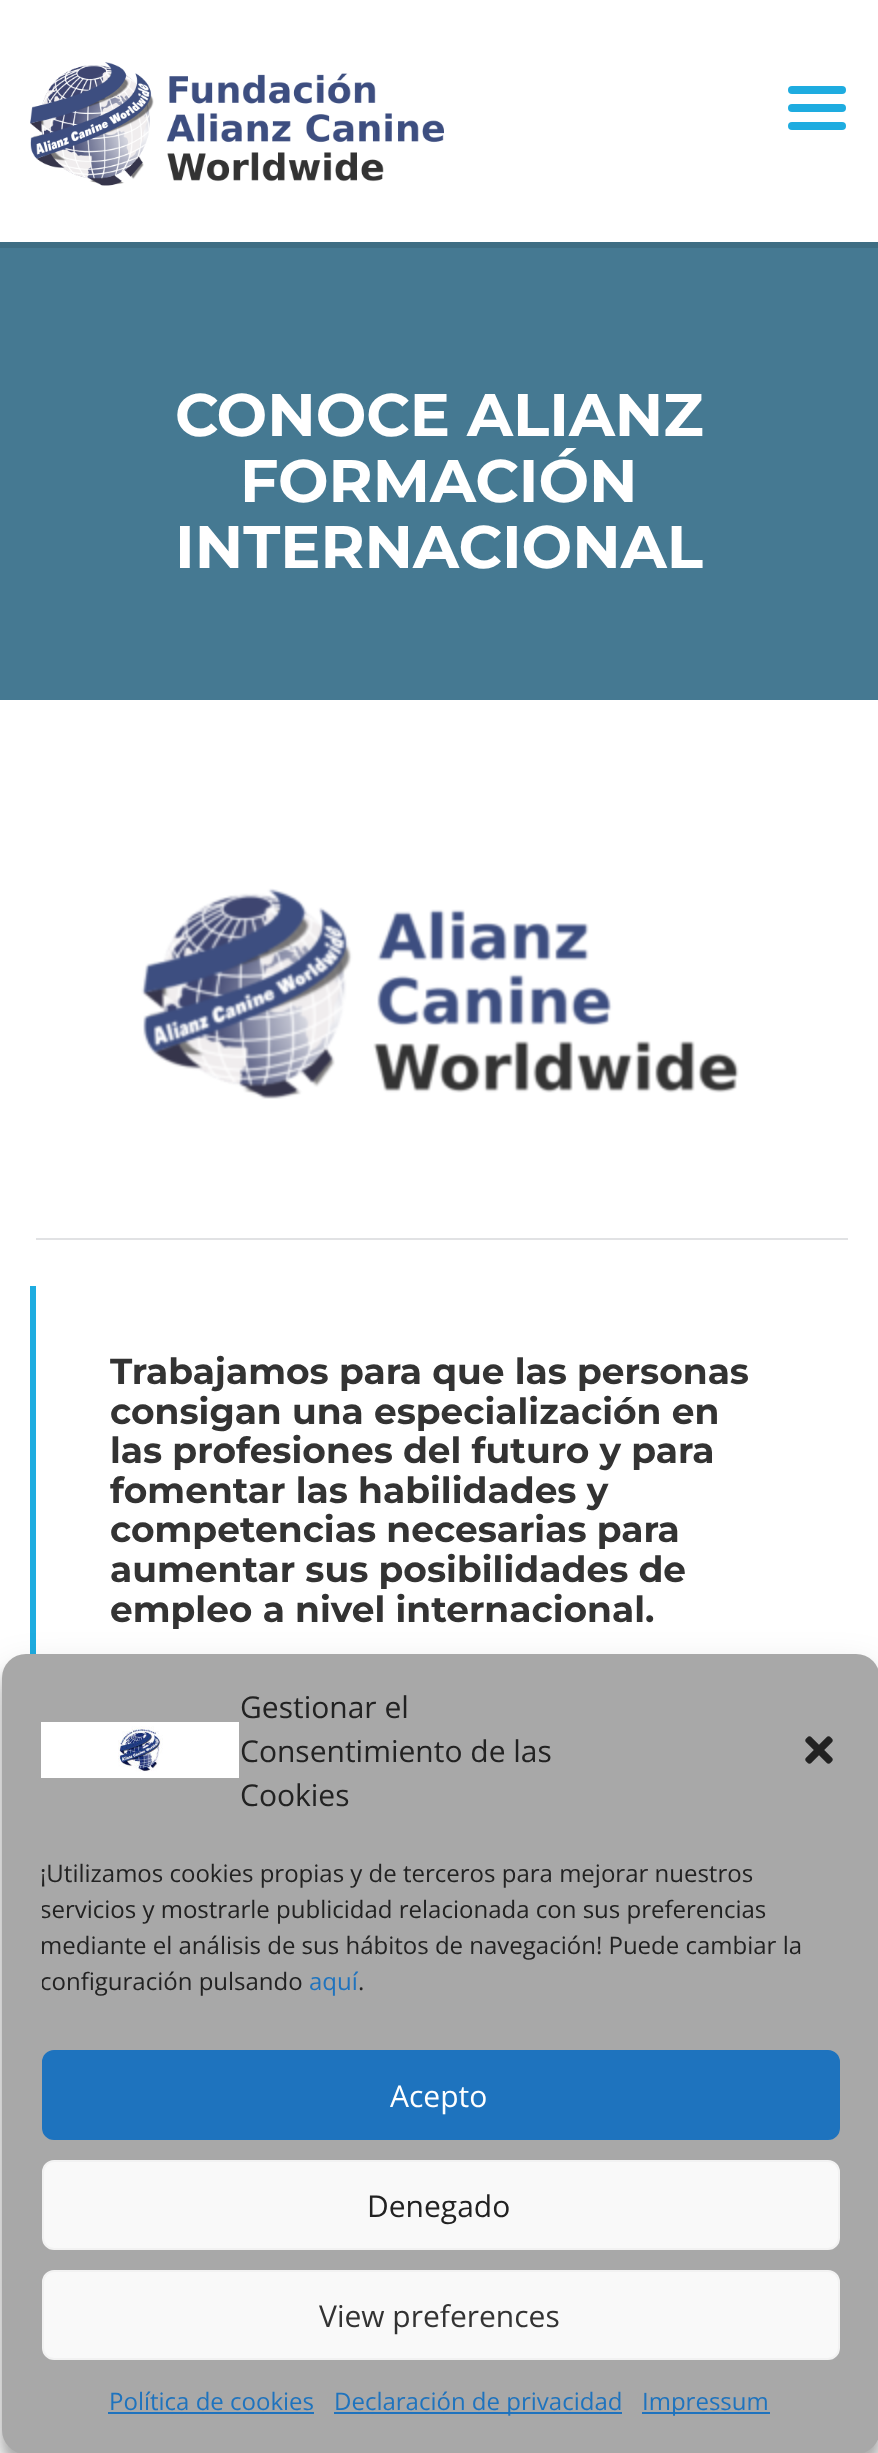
<!DOCTYPE html>
<meta charset="utf-8">
<style>body { margin: 0 } canvas { display: block }</style>
<canvas id="canvas" width="878" height="2453"></canvas>
<script type="module">
  const canvas = document.getElementById("canvas");
  const ctx = canvas.getContext("2d");
  ctx.miterLimit = 4;
  ctx.fontKerning = "normal";
  async function loadImage(src) {
    const img = new Image();
    img.src = src;
    await img.decode();
    return img;
  }

  ctx.fillStyle = "#ffffff";
  ctx.fillRect(0, 0, 878, 2453);
  ctx.drawImage(await loadImage("img1.png"), 30, 62, 414, 124);
  ctx.fillStyle = "#1eace0";
  ctx.beginPath();
  ctx.roundRect(788, 86, 58, 8, 4);
  ctx.fill();
  ctx.beginPath();
  ctx.roundRect(788, 104, 58, 8, 4);
  ctx.fill();
  ctx.beginPath();
  ctx.roundRect(788, 122, 58, 8, 4);
  ctx.fill();
  ctx.fillStyle = "#3e6d83";
  ctx.fillRect(0, 242, 878, 6);
  ctx.fillStyle = "#457992";
  ctx.fillRect(0, 248, 878, 452);
  ctx.font = "bold 60px Montserrat";
  ctx.fillStyle = "#ffffff";
  ctx.fillText("CONOCE ALIANZ", 175, 436);
  ctx.fillText("FORMACIÓN", 240, 502);
  ctx.fillText("INTERNACIONAL", 175, 568);
  ctx.drawImage(await loadImage("img2.png"), 141, 888, 598, 211);
  ctx.fillStyle = "#1eace0";
  ctx.fillRect(30, 1286, 6, 368);
  ctx.fillStyle = "#e1e2e4";
  ctx.fillRect(36, 1238, 812, 2);
  ctx.font = "bold 36px Montserrat";
  ctx.fillStyle = "#333333";
  ctx.fillText("Trabajamos para que las personas", 110, 1384);
  ctx.fillText("consigan una especialización en", 110, 1424);
  ctx.fillText("las profesiones del futuro y para", 110, 1463);
  ctx.fillText("fomentar las habilidades y", 110, 1503);
  ctx.fillText("competencias necesarias para", 110, 1542);
  ctx.fillText("aumentar sus posibilidades de", 110, 1582);
  ctx.fillText("empleo a nivel internacional.", 110, 1622);
  ctx.fillStyle = "rgba(0, 0, 0, 0.23)";
  ctx.filter = "blur(6px)";
  ctx.beginPath();
  ctx.roundRect(2, 1666, 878, 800, 24);
  ctx.fill();
  ctx.filter = "none";
  ctx.fillStyle = "rgba(0, 0, 0, 0.19)";
  ctx.filter = "blur(20px)";
  ctx.beginPath();
  ctx.roundRect(2, 1674, 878, 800, 24);
  ctx.fill();
  ctx.filter = "none";
  ctx.fillStyle = "#a8a8a8";
  ctx.beginPath();
  ctx.roundRect(2, 1654, 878, 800, 24);
  ctx.fill();
  ctx.drawImage(await loadImage("img3.png"), 41, 1722, 198, 56);
  ctx.font = "30px Open Sans";
  ctx.fillStyle = "#222222";
  ctx.fillText("Gestionar el", 240, 1718);
  ctx.fillText("Consentimiento de las", 240, 1762);
  ctx.fillText("Cookies", 240, 1806);
  ctx.drawImage(await loadImage("img4.png"), 805, 1736, 28, 28);
  ctx.font = "24px Open Sans";
  ctx.fillText("¡Utilizamos cookies propias y de terceros para mejorar nuestros", 40, 1882);
  ctx.save();
  ctx.beginPath();
  ctx.rect(42, 1856, 798, 154);
  ctx.clip();
  ctx.fillText("servicios y mostrarle publicidad relacionada con sus preferencias", 40, 1918);
  ctx.restore();
  ctx.fillText("mediante el análisis de sus hábitos de navegación! Puede cambiar la", 40, 1954);
  ctx.save();
  ctx.beginPath();
  ctx.rect(42, 1856, 798, 154);
  ctx.clip();
  ctx.fillText("configuración pulsando", 40, 1990);
  ctx.restore();
  ctx.fillStyle = "#1e73be";
  ctx.fillText("aquí", 309, 1990);
  ctx.fillStyle = "#222222";
  ctx.fillText(".", 358, 1990);
  ctx.fillStyle = "#1e73be";
  ctx.beginPath();
  ctx.roundRect(43, 2051, 796, 88, 11);
  ctx.fill();
  ctx.strokeStyle = "#1e73be";
  ctx.lineWidth = 2;
  ctx.stroke();
  ctx.font = "30px Open Sans";
  ctx.fillStyle = "#ffffff";
  ctx.fillText("Acepto", 390, 2107);
  ctx.fillStyle = "#f9f9f9";
  ctx.beginPath();
  ctx.roundRect(43, 2161, 796, 88, 11);
  ctx.fill();
  ctx.strokeStyle = "#f2f2f2";
  ctx.stroke();
  ctx.fillStyle = "#222222";
  ctx.fillText("Denegado", 367, 2217);
  ctx.fillStyle = "#f9f9f9";
  ctx.beginPath();
  ctx.roundRect(43, 2271, 796, 88, 11);
  ctx.fill();
  ctx.stroke();
  ctx.fillStyle = "#333333";
  ctx.fillText("View preferences", 319, 2327);
  ctx.font = "24px Open Sans";
  ctx.fillStyle = "#1e73be";
  ctx.fillText("Política de cookies", 109, 2410);
  ctx.fillRect(108, 2412, 206, 2);
  ctx.fillRect(334, 2412, 288, 2);
  ctx.fillText("Declaración de privacidad", 334, 2410);
  ctx.fillRect(642, 2412, 128, 2);
  ctx.fillText("Impressum", 642, 2410);
</script>
